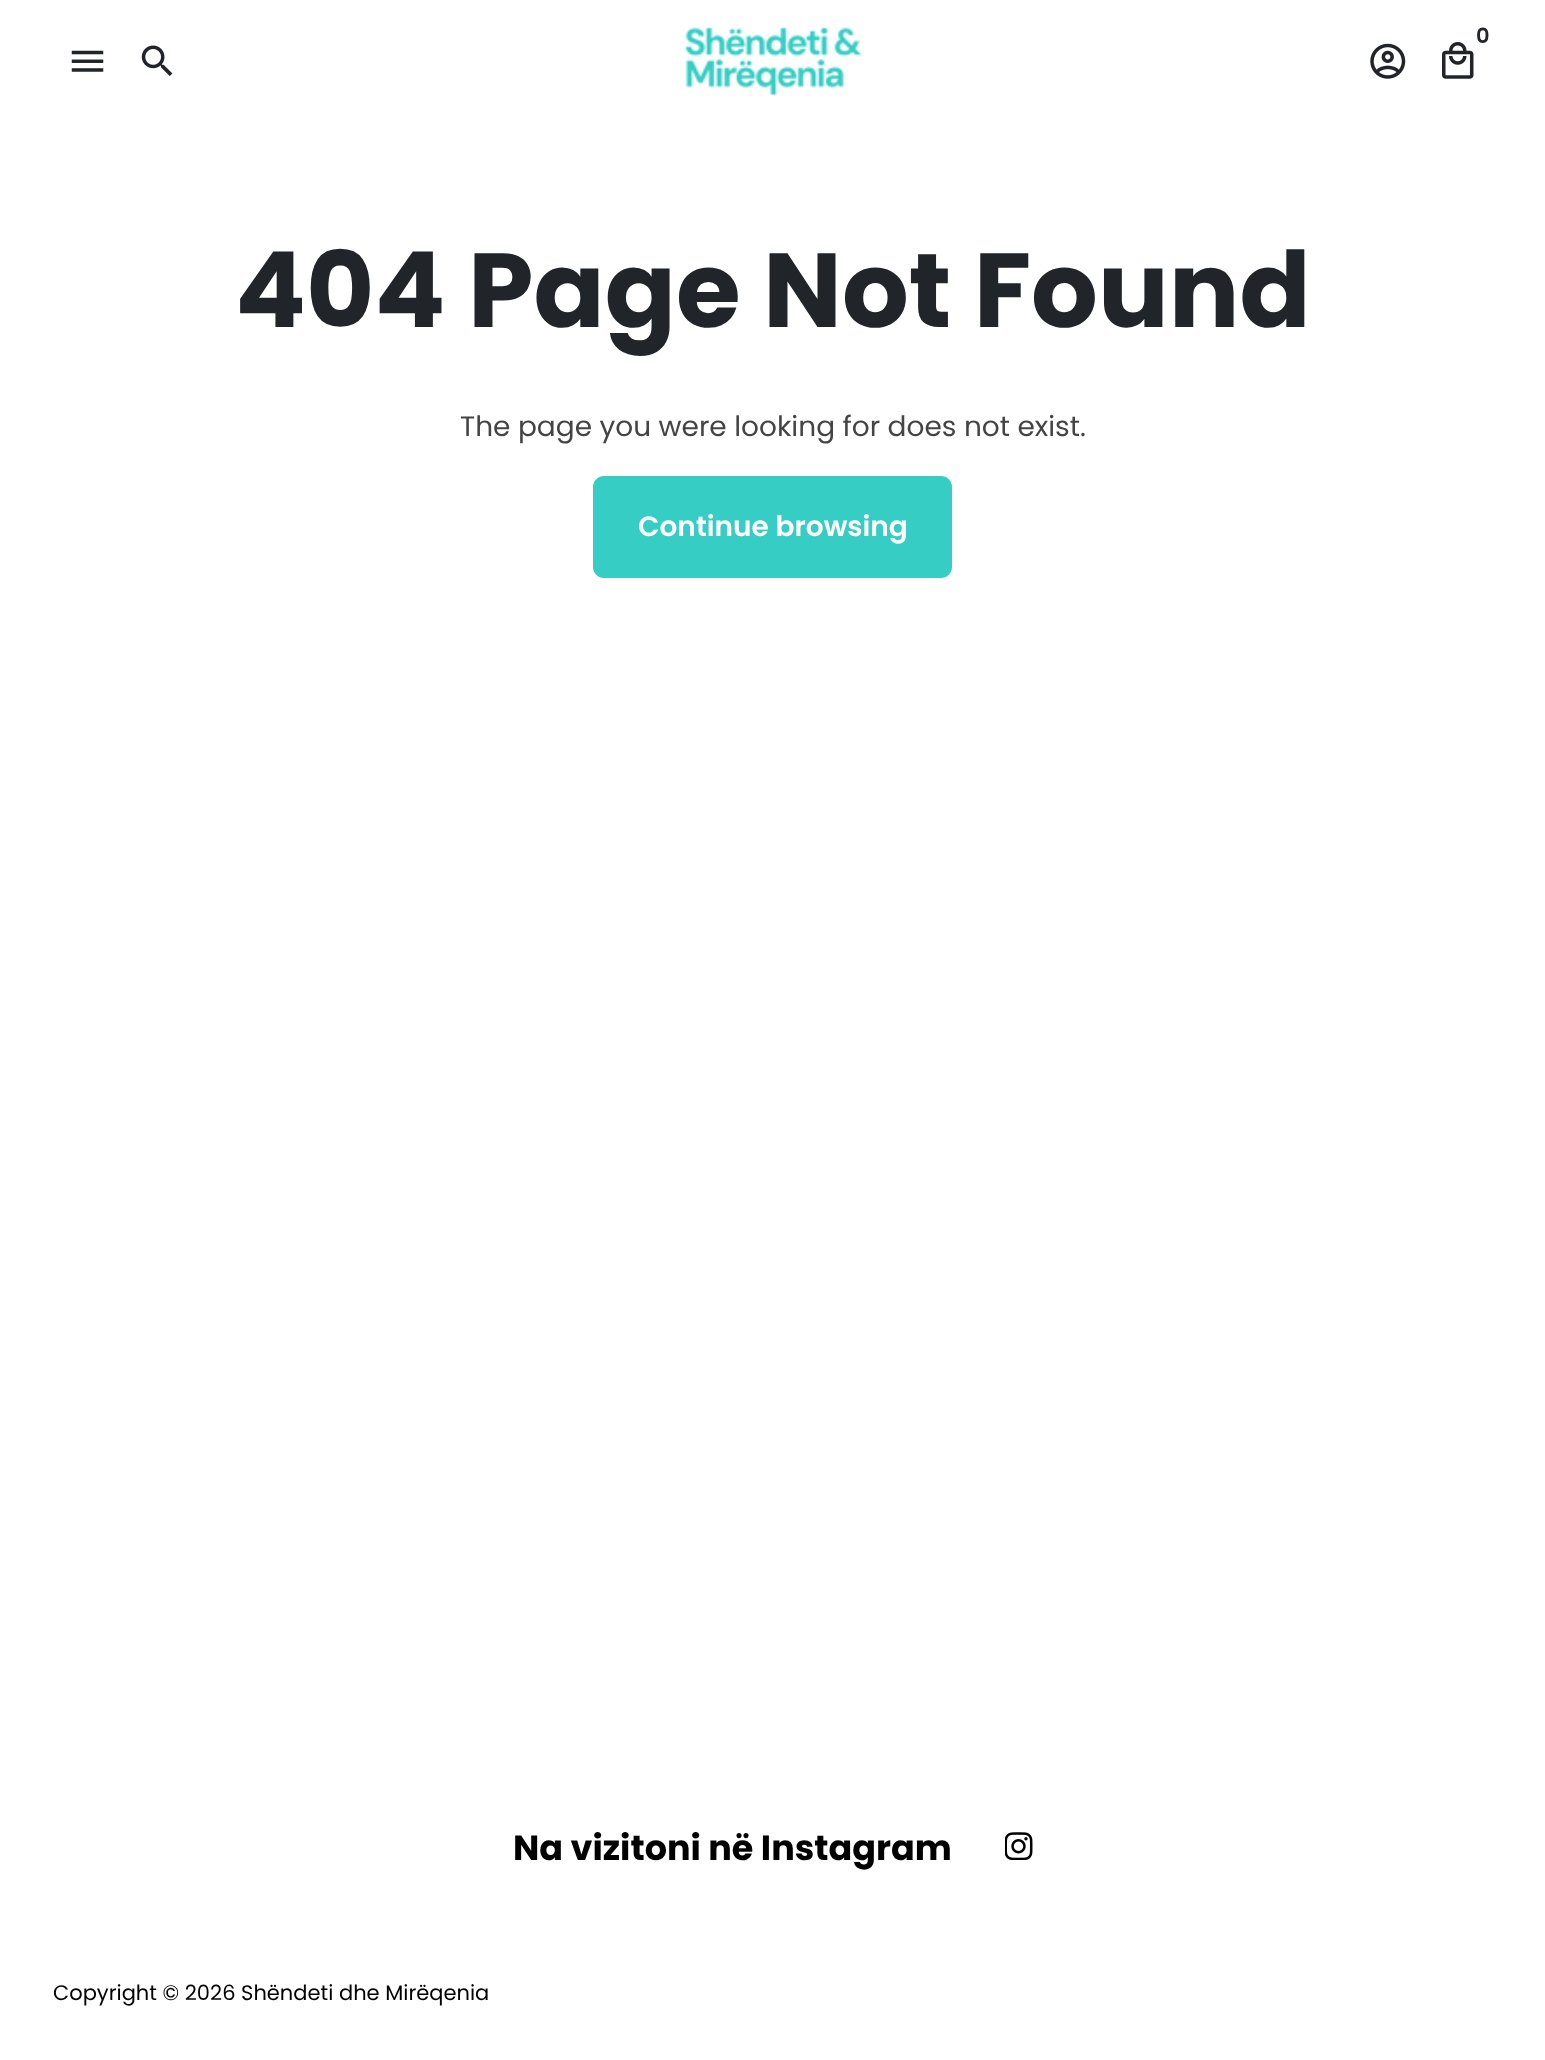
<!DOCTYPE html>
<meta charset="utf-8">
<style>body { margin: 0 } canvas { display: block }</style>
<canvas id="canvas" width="1545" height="2060"></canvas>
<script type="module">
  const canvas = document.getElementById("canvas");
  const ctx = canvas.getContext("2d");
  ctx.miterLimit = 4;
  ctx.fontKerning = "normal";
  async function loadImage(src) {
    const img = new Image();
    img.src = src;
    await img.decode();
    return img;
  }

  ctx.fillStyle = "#ffffff";
  ctx.fillRect(0, 0, 1545, 2060);
  ctx.drawImage(await loadImage("img1.png"), 685, 27, 176, 68);
  ctx.font = "600 21px Poppins";
  ctx.fillStyle = "#212529";
  ctx.fillText("0", 1476, 43);
  ctx.drawImage(await loadImage("img2.png"), 1442, 42, 32, 37);
  ctx.drawImage(await loadImage("img3.png"), 1370, 43, 36, 36);
  ctx.drawImage(await loadImage("img4.png"), 71, 50, 33, 22);
  ctx.drawImage(await loadImage("img5.png"), 141, 45, 32, 31);
  ctx.font = "bold 105px Poppins";
  ctx.fillText("404 Page Not Found", 235, 327);
  ctx.font = "28px Poppins";
  ctx.fillStyle = "#444444";
  ctx.fillText("The page you were looking for does not exist.", 460, 436);
  ctx.fillStyle = "#36cdc4";
  ctx.beginPath();
  ctx.roundRect(594, 477, 357, 100, 10);
  ctx.fill();
  ctx.strokeStyle = "#36cdc4";
  ctx.lineWidth = 2;
  ctx.stroke();
  ctx.font = "600 28px Poppins";
  ctx.fillStyle = "#ffffff";
  ctx.fillText("Continue browsing", 638, 536);
  ctx.font = "bold 35px Poppins";
  ctx.fillStyle = "#000000";
  ctx.fillText("Na vizitoni në Instagram", 513, 1860);
  ctx.drawImage(await loadImage("img6.png"), 1005, 1832, 28, 28);
  ctx.font = "21px Poppins";
  ctx.fillText("Copyright © 2026 Shëndeti dhe Mirëqenia", 53, 2000);
</script>
